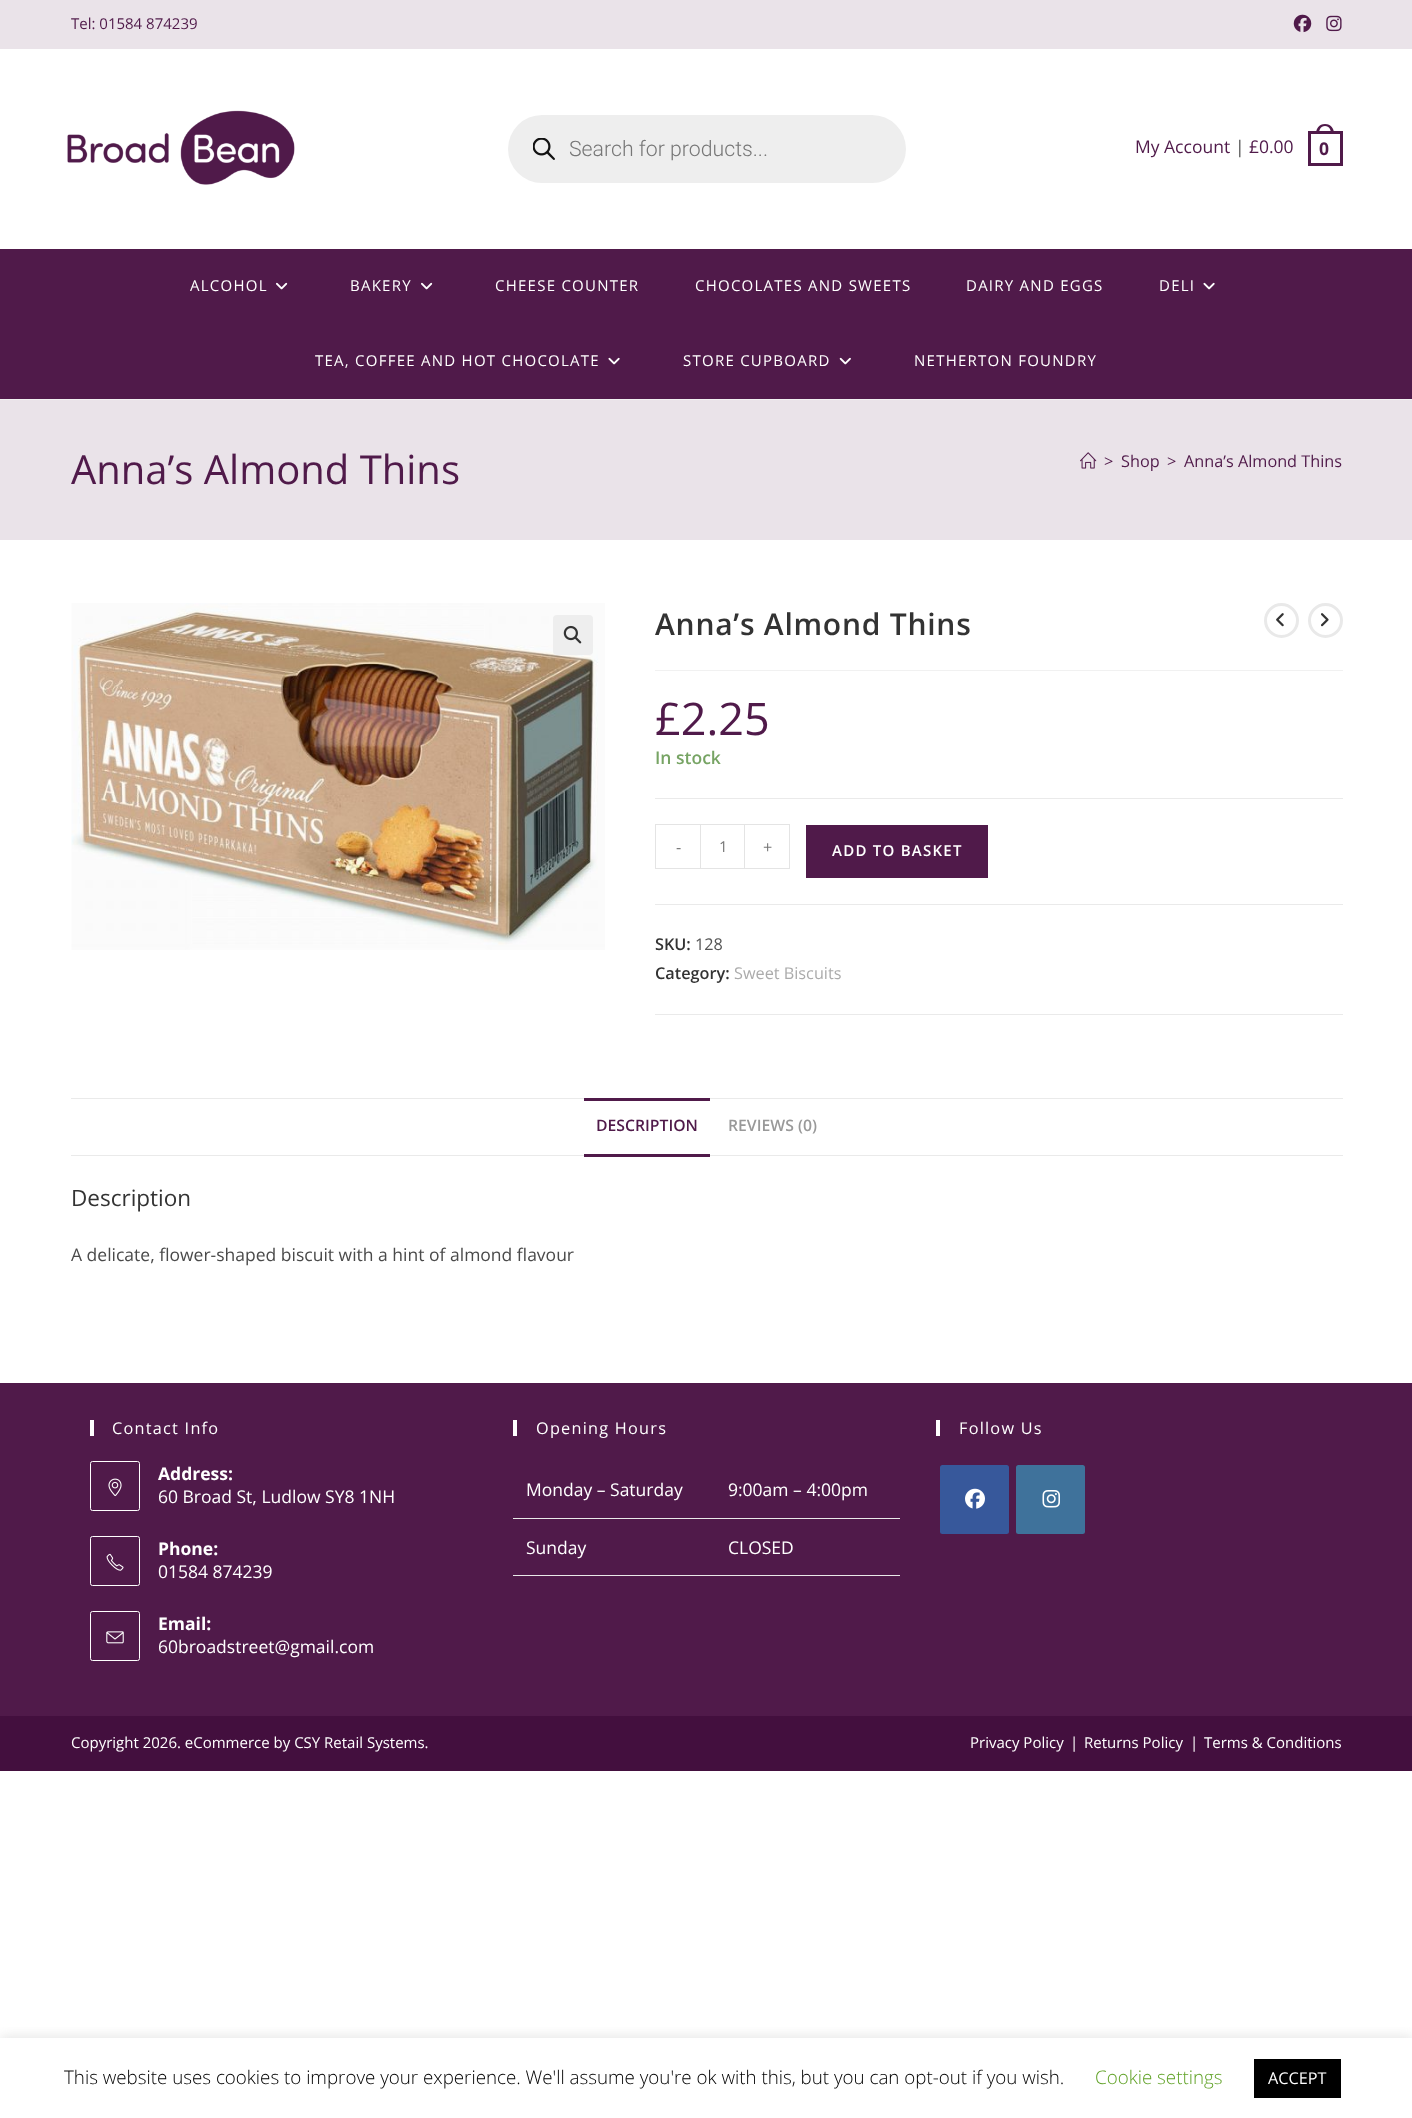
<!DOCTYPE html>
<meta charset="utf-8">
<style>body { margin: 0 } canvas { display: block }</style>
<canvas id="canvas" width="1412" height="2118"></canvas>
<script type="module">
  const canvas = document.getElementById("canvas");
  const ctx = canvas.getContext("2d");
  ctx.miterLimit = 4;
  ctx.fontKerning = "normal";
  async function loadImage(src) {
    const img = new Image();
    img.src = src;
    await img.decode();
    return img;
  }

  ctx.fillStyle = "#ffffff";
  ctx.fillRect(0, 0, 1412, 2118);
  ctx.fillStyle = "#eae3e9";
  ctx.fillRect(0, 0, 1412, 49);
  ctx.font = "15px Open Sans";
  ctx.fillStyle = "#501a4a";
  ctx.fillText("Tel: 01584 874239", 71, 29);
  ctx.drawImage(await loadImage("img1.png"), 1293, 14, 19, 19);
  ctx.drawImage(await loadImage("img2.png"), 1326, 15, 16, 17);
  ctx.fillStyle = "#f1f1f1";
  ctx.fillRect(0, 399, 1412, 1);
  ctx.drawImage(await loadImage("img3.png"), 67, 110, 228, 75);
  ctx.fillStyle = "#eeeeee";
  ctx.beginPath();
  ctx.roundRect(508, 115, 398, 68, 34);
  ctx.fill();
  ctx.drawImage(await loadImage("img4.png"), 533, 138, 22, 22);
  ctx.font = "300 21.25px Roboto";
  ctx.fillStyle = "#777777";
  ctx.fillText("Search for products...", 569, 156);
  ctx.font = "17.5px Open Sans";
  ctx.fillStyle = "#501a4a";
  ctx.fillText("My Account", 1135, 153);
  ctx.fillStyle = "#4a4a4a";
  ctx.fillText("|", 1235, 153);
  ctx.fillStyle = "#501a4a";
  ctx.fillText("£0.00", 1249, 153);
  ctx.strokeStyle = "#501a4a";
  ctx.lineWidth = 3;
  ctx.strokeRect(1309.5, 132.5, 32, 32);
  ctx.beginPath();
  ctx.moveTo(1325, 124);
  ctx.bezierCurveTo(1331, 124, 1334, 128.5, 1334, 134);
  ctx.lineTo(1316, 134);
  ctx.bezierCurveTo(1316, 128.5, 1319, 124, 1325, 124);
  ctx.closePath();
  ctx.moveTo(1325, 126);
  ctx.bezierCurveTo(1329.5, 126, 1331, 130, 1331, 134);
  ctx.lineTo(1319, 134);
  ctx.bezierCurveTo(1319, 130, 1320.5, 126, 1325, 126);
  ctx.closePath();
  ctx.fill("evenodd");
  ctx.font = "bold 17.5px Open Sans";
  ctx.fillText("0", 1319, 155);
  ctx.fillRect(0, 249, 1412, 150);
  ctx.letterSpacing = "1.25px";
  ctx.font = "15px Open Sans";
  ctx.fillStyle = "#ffffff";
  ctx.fillText("ALCOHOL", 190, 291);
  ctx.drawImage(await loadImage("img5.png"), 276, 282, 12, 8);
  ctx.fillText("BAKERY", 350, 291);
  ctx.drawImage(await loadImage("img5.png"), 421, 282, 12, 8);
  ctx.fillText("CHEESE COUNTER", 495, 291);
  ctx.fillText("CHOCOLATES AND SWEETS", 695, 291);
  ctx.fillText("DAIRY AND EGGS", 966, 291);
  ctx.fillText("DELI", 1159, 291);
  ctx.drawImage(await loadImage("img6.png"), 1203, 282, 12, 8);
  ctx.fillText("TEA, COFFEE AND HOT CHOCOLATE", 315, 366);
  ctx.drawImage(await loadImage("img6.png"), 608, 357, 12, 8);
  ctx.fillText("STORE CUPBOARD", 683, 366);
  ctx.drawImage(await loadImage("img7.png"), 839, 357, 12, 8);
  ctx.fillText("NETHERTON FOUNDRY", 914, 366);
  ctx.fillStyle = "#eae3e9";
  ctx.fillRect(0, 400, 1412, 140);
  ctx.letterSpacing = "0px";
  ctx.font = "40px Open Sans";
  ctx.fillStyle = "#501a4a";
  ctx.fillText("Anna’s Almond Thins", 71, 484);
  ctx.drawImage(await loadImage("img8.png"), 1080, 452, 17, 17);
  ctx.font = "16.25px Open Sans";
  ctx.fillText(">", 1104, 467);
  ctx.fillText("Shop", 1121, 467);
  ctx.fillText(">", 1167, 467);
  ctx.fillText("Anna’s Almond Thins", 1184, 467);
  ctx.drawImage(await loadImage("img9.png"), 71, 603, 534, 347);
  ctx.fillStyle = "#eeeeee";
  ctx.beginPath();
  ctx.roundRect(553, 615, 40, 40, 4);
  ctx.fill();
  ctx.drawImage(await loadImage("img10.png"), 563, 625, 19, 19);
  ctx.fillStyle = "#f1f1f1";
  ctx.fillRect(655, 670, 688, 1);
  ctx.letterSpacing = "0.75px";
  ctx.font = "600 30px Open Sans";
  ctx.fillStyle = "#333333";
  ctx.fillText("Anna’s Almond Thins", 655, 635);
  ctx.letterSpacing = "0px";
  ctx.font = "45px Open Sans";
  ctx.fillStyle = "#501a4a";
  ctx.fillText("£2.25", 655, 735);
  ctx.font = "600 17.5px Open Sans";
  ctx.fillStyle = "#77a464";
  ctx.fillText("In stock", 655, 764);
  ctx.fillStyle = "#eaeaea";
  ctx.fillRect(655, 798, 688, 1);
  ctx.fillRect(655, 904, 688, 1);
  ctx.fillStyle = "#e4e4e4";
  ctx.fillRect(655, 824, 45, 1);
  ctx.fillRect(655, 868, 45, 1);
  ctx.fillRect(655, 824, 1, 45);
  ctx.font = "16.25px Open Sans";
  ctx.fillStyle = "#777777";
  ctx.fillText("-", 676, 853);
  ctx.strokeStyle = "#e4e4e4";
  ctx.lineWidth = 1;
  ctx.strokeRect(700.5, 824.5, 44, 44);
  ctx.font = "15px Open Sans";
  ctx.fillText("1", 719, 852);
  ctx.fillStyle = "#e4e4e4";
  ctx.fillRect(745, 824, 45, 1);
  ctx.fillRect(789, 824, 1, 45);
  ctx.fillRect(745, 868, 45, 1);
  ctx.font = "16.25px Open Sans";
  ctx.fillStyle = "#777777";
  ctx.fillText("+", 763, 853);
  ctx.fillStyle = "#501a4a";
  ctx.fillRect(806, 825, 182, 53);
  ctx.letterSpacing = "1.25px";
  ctx.font = "600 15px Open Sans";
  ctx.fillStyle = "#ffffff";
  ctx.fillText("ADD TO BASKET", 832, 856);
  ctx.fillStyle = "#eaeaea";
  ctx.fillRect(655, 1014, 688, 1);
  ctx.letterSpacing = "0px";
  ctx.font = "600 16.25px Open Sans";
  ctx.fillStyle = "#333333";
  ctx.fillText("SKU:", 655, 950);
  ctx.font = "16.25px Open Sans";
  ctx.fillStyle = "#555555";
  ctx.fillText("128", 695, 950);
  ctx.font = "600 16.25px Open Sans";
  ctx.fillStyle = "#333333";
  ctx.fillText("Category:", 655, 979);
  ctx.font = "16.25px Open Sans";
  ctx.fillStyle = "#ababab";
  ctx.fillText("Sweet Biscuits", 734, 979);
  ctx.beginPath();
  ctx.arc(1281.5, 620.5, 16, 0, Math.PI * 2);
  ctx.strokeStyle = "#e9e9e9";
  ctx.lineWidth = 3;
  ctx.stroke();
  ctx.drawImage(await loadImage("img11.png"), 1276, 613, 8, 14);
  ctx.beginPath();
  ctx.arc(1325.5, 620.5, 16, 0, Math.PI * 2);
  ctx.stroke();
  ctx.drawImage(await loadImage("img12.png"), 1321, 613, 8, 14);
  ctx.fillStyle = "#eaeaea";
  ctx.fillRect(71, 1098, 1272, 1);
  ctx.fillRect(71, 1155, 1272, 1);
  ctx.fillStyle = "#501a4a";
  ctx.fillRect(584, 1098, 126, 3);
  ctx.fillRect(584, 1154, 126, 3);
  ctx.font = "600 15.75px Open Sans";
  ctx.fillText("DESCRIPTION", 596, 1131);
  ctx.fillStyle = "#999999";
  ctx.fillText("REVIEWS (0)", 728, 1131);
  ctx.font = "22.5px Open Sans";
  ctx.fillStyle = "#333333";
  ctx.fillText("Description", 71, 1206);
  ctx.font = "17.5px Open Sans";
  ctx.fillStyle = "#4a4a4a";
  ctx.fillText("A delicate, flower-shaped biscuit with a hint of almond flavour", 71, 1261);
  ctx.fillStyle = "#501a4a";
  ctx.fillRect(0, 1383, 1412, 333);
  ctx.fillStyle = "#ffffff";
  ctx.fillRect(90, 1420, 4, 16);
  ctx.letterSpacing = "1.25px";
  ctx.font = "16.25px Open Sans";
  ctx.fillText("Contact Info", 112, 1434);
  ctx.beginPath();
  ctx.roundRect(90.5, 1461.5, 49, 49, 2);
  ctx.strokeStyle = "#ffffff";
  ctx.lineWidth = 1;
  ctx.stroke();
  ctx.drawImage(await loadImage("img13.png"), 108, 1478, 14, 19);
  ctx.letterSpacing = "0px";
  ctx.font = "bold 17.5px Open Sans";
  ctx.fillText("Address:", 158, 1480);
  ctx.font = "17.5px Open Sans";
  ctx.fillText("60 Broad St, Ludlow SY8 1NH", 158, 1503);
  ctx.beginPath();
  ctx.roundRect(90.5, 1536.5, 49, 49, 2);
  ctx.stroke();
  ctx.drawImage(await loadImage("img14.png"), 106, 1553, 18, 18);
  ctx.font = "bold 17.5px Open Sans";
  ctx.fillText("Phone:", 158, 1555);
  ctx.font = "17.5px Open Sans";
  ctx.fillText("01584 874239", 158, 1578);
  ctx.beginPath();
  ctx.roundRect(90.5, 1611.5, 49, 49, 2);
  ctx.stroke();
  ctx.drawImage(await loadImage("img15.png"), 106, 1631, 18, 13);
  ctx.font = "bold 17.5px Open Sans";
  ctx.fillText("Email:", 158, 1630);
  ctx.font = "17.5px Open Sans";
  ctx.fillText("60broadstreet@gmail.com", 158, 1653);
  ctx.fillRect(513, 1420, 4, 16);
  ctx.letterSpacing = "1.25px";
  ctx.font = "16.25px Open Sans";
  ctx.fillText("Opening Hours", 536, 1434);
  ctx.letterSpacing = "0px";
  ctx.font = "17.5px Open Sans";
  ctx.fillText("Monday – Saturday", 526, 1496);
  ctx.fillStyle = "#e9e9e9";
  ctx.fillRect(513, 1518, 387, 1);
  ctx.fillStyle = "#ffffff";
  ctx.fillText("9:00am – 4:00pm", 728, 1496);
  ctx.fillText("Sunday", 526, 1554);
  ctx.fillStyle = "#e9e9e9";
  ctx.fillRect(513, 1575, 387, 1);
  ctx.fillStyle = "#ffffff";
  ctx.fillText("CLOSED", 728, 1554);
  ctx.fillRect(936, 1420, 4, 16);
  ctx.letterSpacing = "1.25px";
  ctx.font = "16.25px Open Sans";
  ctx.fillText("Follow Us", 959, 1434);
  ctx.fillStyle = "#37589b";
  ctx.beginPath();
  ctx.roundRect(940, 1465, 69, 69, 2.5);
  ctx.fill();
  ctx.drawImage(await loadImage("img16.png"), 965, 1488, 20, 21);
  ctx.fillStyle = "#3f729b";
  ctx.beginPath();
  ctx.roundRect(1016, 1465, 69, 69, 2.5);
  ctx.fill();
  ctx.drawImage(await loadImage("img17.png"), 1042, 1490, 18, 18);
  ctx.fillStyle = "#430f3e";
  ctx.fillRect(0, 1716, 1412, 55);
  ctx.letterSpacing = "0px";
  ctx.font = "15px Open Sans";
  ctx.fillStyle = "#ffffff";
  ctx.fillText("Copyright 2026. eCommerce by CSY Retail Systems.", 71, 1748);
  ctx.fillText("Privacy Policy", 970, 1748);
  ctx.fillText("|", 1070, 1748);
  ctx.fillText("Returns Policy", 1084, 1748);
  ctx.fillText("|", 1190, 1748);
  ctx.fillText("Terms & Conditions", 1204, 1748);
  ctx.save();
  ctx.beginPath();
  ctx.rect(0, 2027, 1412, 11);
  ctx.clip();
  ctx.fillStyle = "rgba(172, 171, 171, 0.3)";
  ctx.filter = "blur(6px)";
  ctx.beginPath();
  ctx.rect(0, 2036, 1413, 82);
  ctx.fill();
  ctx.filter = "none";
  ctx.restore();
  ctx.font = "300 18.75px Open Sans";
  ctx.fillStyle = "#000000";
  ctx.fillText("This website uses cookies to improve your experience. We'll assume you're ok with this, but you can opt-out if you wish.", 64, 2084);
  ctx.fillStyle = "#62a329";
  ctx.fillText("Cookie settings", 1095, 2084);
  ctx.fillStyle = "#000000";
  ctx.fillRect(1254, 2059, 87, 39);
  ctx.font = "16.25px Open Sans";
  ctx.fillStyle = "#ffffff";
  ctx.fillText("ACCEPT", 1268, 2084);
</script>
